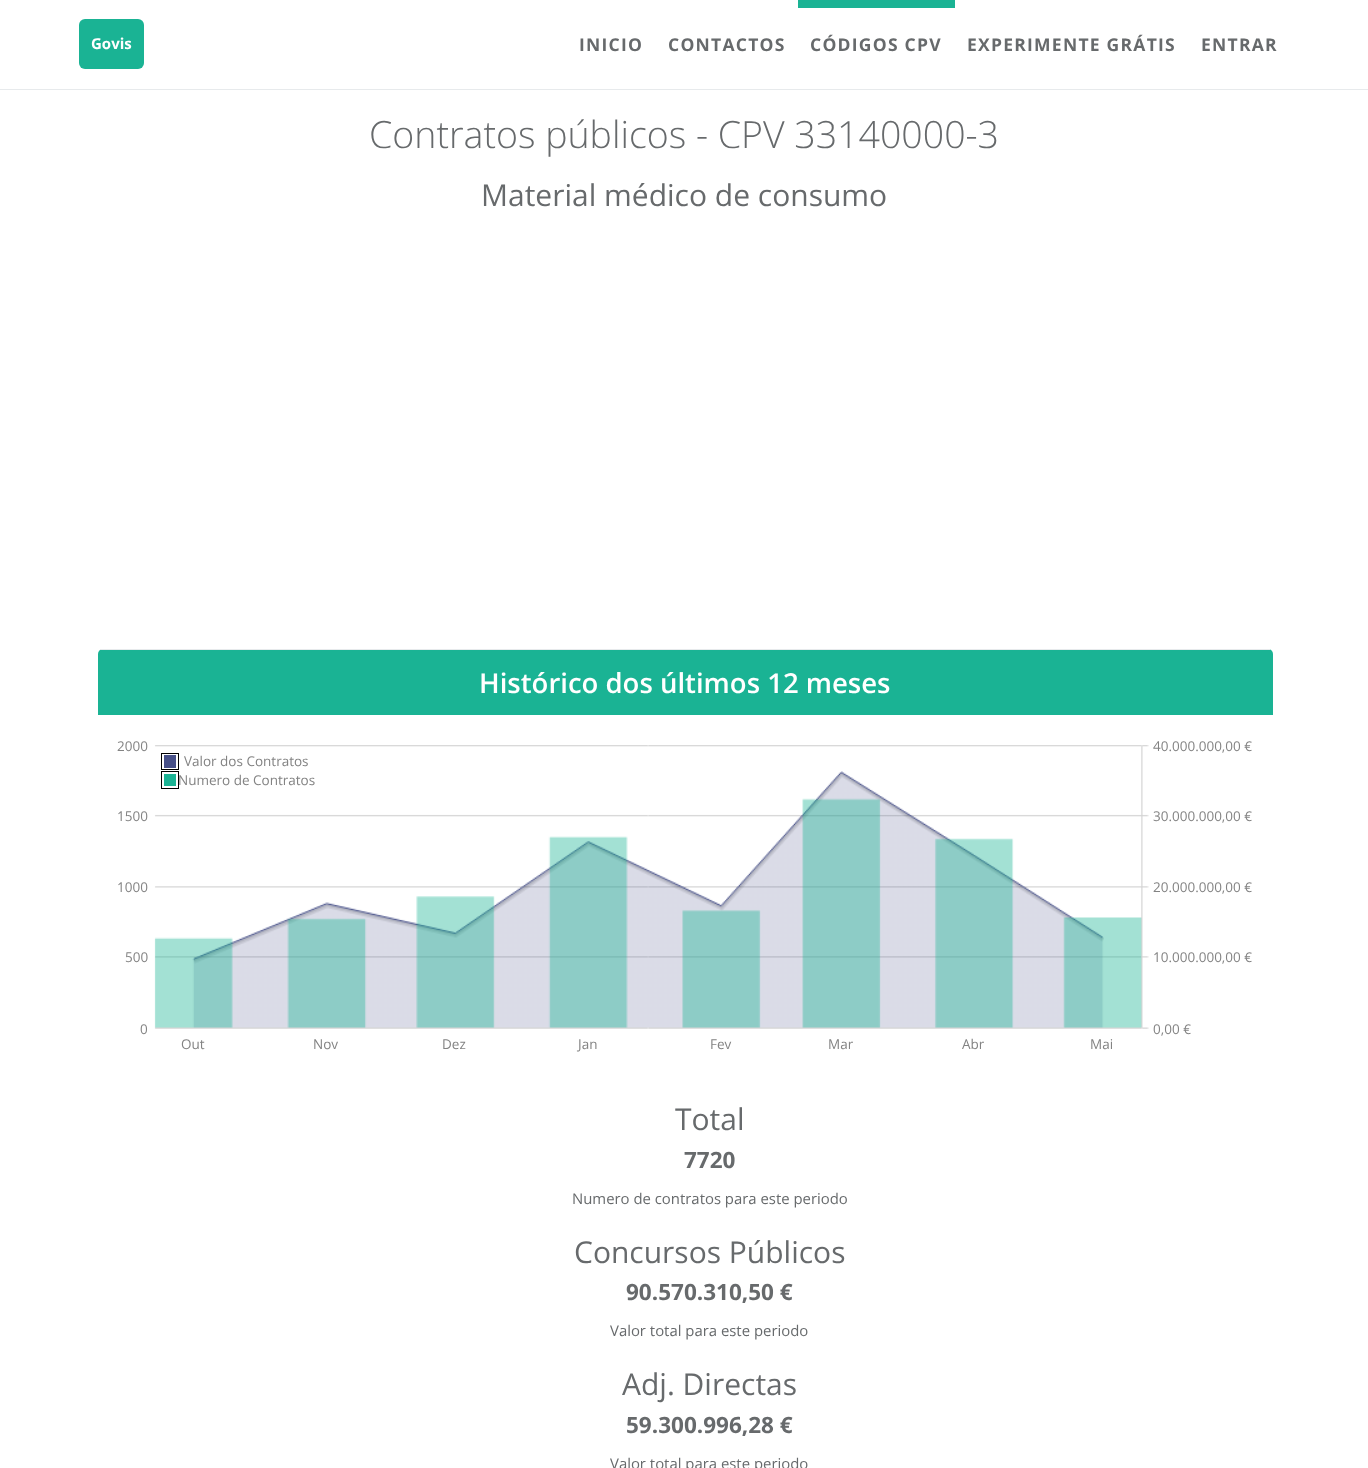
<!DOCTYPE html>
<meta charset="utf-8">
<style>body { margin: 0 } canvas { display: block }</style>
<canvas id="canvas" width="1368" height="1468"></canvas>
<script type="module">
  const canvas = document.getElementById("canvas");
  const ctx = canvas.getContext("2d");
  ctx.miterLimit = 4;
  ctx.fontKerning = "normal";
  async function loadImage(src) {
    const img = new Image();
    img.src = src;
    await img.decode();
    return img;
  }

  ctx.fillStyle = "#ffffff";
  ctx.fillRect(0, 0, 1368, 1468);
  ctx.fillStyle = "#e7eaec";
  ctx.fillRect(0, 89, 1368, 1);
  ctx.fillStyle = "#1ab394";
  ctx.beginPath();
  ctx.roundRect(79, 19, 65, 50, 6);
  ctx.fill();
  ctx.font = "bold 15px Open Sans";
  ctx.fillStyle = "#ffffff";
  ctx.fillText("Govis", 91, 49);
  ctx.letterSpacing = "1.25px";
  ctx.font = "bold 17.5px Open Sans";
  ctx.fillStyle = "#676a6c";
  ctx.fillText("INICIO", 579, 51);
  ctx.fillText("CONTACTOS", 668, 51);
  ctx.fillStyle = "#1ab394";
  ctx.fillRect(798, 0, 157, 8);
  ctx.fillStyle = "#676a6c";
  ctx.fillText("CÓDIGOS CPV", 810, 51);
  ctx.fillText("EXPERIMENTE GRÁTIS", 967, 51);
  ctx.fillText("ENTRAR", 1201, 51);
  ctx.letterSpacing = "0px";
  ctx.font = "300 37.5px Open Sans";
  ctx.fillText("Contratos públicos - CPV 33140000-3", 369, 148);
  ctx.font = "30px Open Sans";
  ctx.fillText("Material médico de consumo", 481, 206);
  ctx.fillStyle = "#1ab394";
  ctx.beginPath();
  ctx.roundRect(98, 649, 1175, 66, [5, 5, 0, 0]);
  ctx.fill();
  ctx.fillStyle = "#e7eaec";
  ctx.fillRect(100, 649, 1170, 1);
  ctx.font = "600 27.5px Open Sans";
  ctx.fillStyle = "#ffffff";
  ctx.fillText("Histórico dos últimos 12 meses", 479, 693);
  ctx.font = "13.5px Open Sans";
  ctx.fillStyle = "#838383";
  ctx.fillText("2000", 117, 751);
  ctx.fillText("1500", 117, 821);
  ctx.fillText("1000", 117, 892);
  ctx.fillText("500", 125, 962);
  ctx.fillText("0", 140, 1034);
  ctx.fillText("40.000.000,00 €", 1153, 751);
  ctx.fillText("30.000.000,00 €", 1153, 821);
  ctx.fillText("20.000.000,00 €", 1153, 892);
  ctx.fillText("10.000.000,00 €", 1153, 962);
  ctx.fillText("0,00 €", 1153, 1034);
  ctx.fillText("Out", 181, 1049);
  ctx.fillText("Nov", 313, 1049);
  ctx.fillText("Dez", 442, 1049);
  ctx.fillText("Jan", 578, 1049);
  ctx.fillText("Fev", 710, 1049);
  ctx.fillText("Mar", 828, 1049);
  ctx.fillText("Abr", 962, 1049);
  ctx.fillText("Mai", 1090, 1049);
  ctx.drawImage(await loadImage("img1.png"), 154, 745, 995, 284);
  ctx.strokeStyle = "#000000";
  ctx.strokeRect(161.5, 753.5, 17, 16);
  ctx.fillStyle = "#464f88";
  ctx.fillRect(164, 755, 12, 13);
  ctx.fillStyle = "#838383";
  ctx.fillText("Valor dos Contratos", 184, 766);
  ctx.strokeRect(161.5, 771.5, 17, 17);
  ctx.fillStyle = "#1ab394";
  ctx.fillRect(164, 774, 12, 12);
  ctx.fillStyle = "#838383";
  ctx.fillText("Numero de Contratos", 178, 785);
  ctx.font = "30px Open Sans";
  ctx.fillStyle = "#676a6c";
  ctx.fillText("Total", 675, 1130);
  ctx.font = "bold 22.5px Open Sans";
  ctx.fillText("7720", 684, 1168);
  ctx.font = "14.9px Open Sans";
  ctx.fillText("Numero de contratos para este periodo", 572, 1204);
  ctx.font = "30px Open Sans";
  ctx.fillText("Concursos Públicos", 574, 1263);
  ctx.font = "bold 22.5px Open Sans";
  ctx.fillText("90.570.310,50 €", 626, 1300);
  ctx.font = "14.9px Open Sans";
  ctx.fillText("Valor total para este periodo", 610, 1336);
  ctx.font = "30px Open Sans";
  ctx.fillText("Adj. Directas", 622, 1395);
  ctx.font = "bold 22.5px Open Sans";
  ctx.fillText("59.300.996,28 €", 626, 1433);
  ctx.font = "14.9px Open Sans";
  ctx.fillText("Valor total para este periodo", 610, 1469);
</script>
